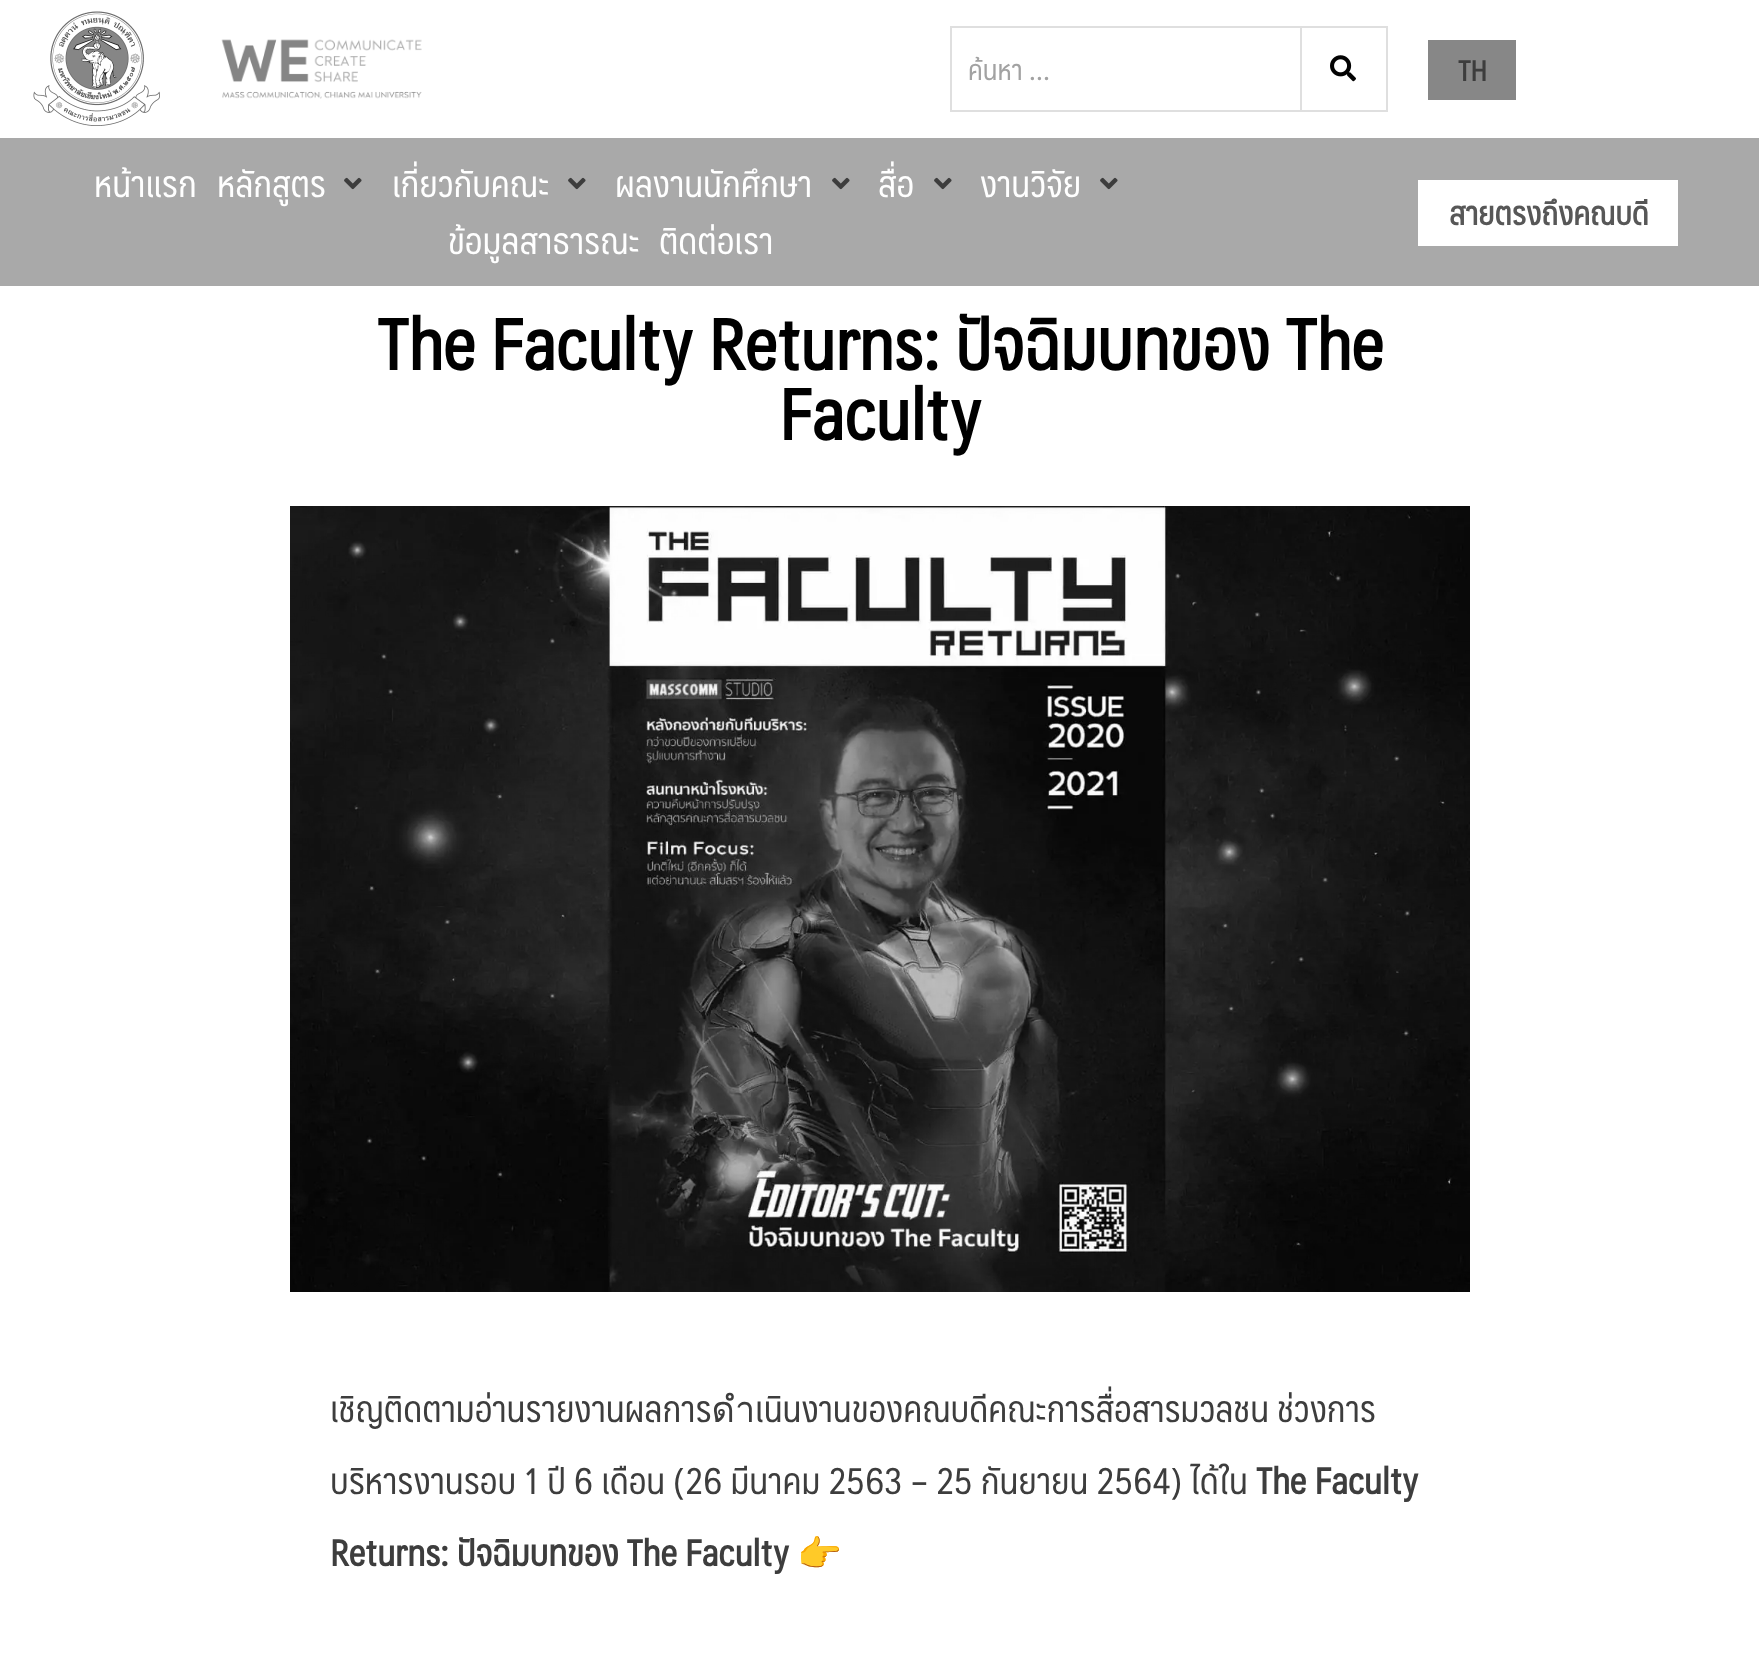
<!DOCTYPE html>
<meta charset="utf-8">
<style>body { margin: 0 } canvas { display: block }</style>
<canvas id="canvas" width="1759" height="1678"></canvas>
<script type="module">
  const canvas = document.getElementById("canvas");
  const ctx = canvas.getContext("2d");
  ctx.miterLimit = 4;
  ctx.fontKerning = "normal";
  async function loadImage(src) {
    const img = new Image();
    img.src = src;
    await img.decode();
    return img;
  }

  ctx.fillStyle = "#ffffff";
  ctx.fillRect(0, 0, 1759, 1678);
  ctx.drawImage(await loadImage("img1.png"), 33, 11, 127, 115);
  ctx.drawImage(await loadImage("img2.png"), 221, 39, 201, 60);
  ctx.strokeStyle = "#dfdfdf";
  ctx.lineWidth = 2;
  ctx.strokeRect(951, 27, 350, 84);
  ctx.save();
  ctx.beginPath();
  ctx.rect(968, 44, 308, 50);
  ctx.clip();
  ctx.font = "28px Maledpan";
  ctx.fillStyle = "#a2a2a2";
  ctx.fillText("ค้นหา …", 968, 80);
  ctx.restore();
  ctx.fillStyle = "#dfdfdf";
  ctx.fillRect(1302, 26, 86, 2);
  ctx.fillRect(1386, 26, 2, 86);
  ctx.fillRect(1302, 110, 86, 2);
  ctx.drawImage(await loadImage("img3.png"), 1330, 55, 26, 27);
  ctx.fillStyle = "#878787";
  ctx.fillRect(1428, 40, 88, 60);
  ctx.font = "bold 28px Maledpan";
  ctx.fillStyle = "#3d3d3d";
  ctx.fillText("TH", 1458, 81);
  ctx.fillStyle = "#a9a9a9";
  ctx.fillRect(0, 138, 1759, 148);
  ctx.font = "36px Maledpan";
  ctx.fillStyle = "#ffffff";
  ctx.fillText("หน้าแรก", 94, 197);
  ctx.fillText("หลักสูตร", 217, 197);
  ctx.drawImage(await loadImage("img4.png"), 344, 177, 18, 13);
  ctx.fillText("เกี่ยวกับคณะ", 392, 197);
  ctx.drawImage(await loadImage("img4.png"), 568, 177, 18, 13);
  ctx.fillText("ผลงานนักศึกษา", 615, 197);
  ctx.drawImage(await loadImage("img4.png"), 832, 177, 18, 13);
  ctx.fillText("สื่อ", 878, 197);
  ctx.drawImage(await loadImage("img4.png"), 934, 177, 18, 13);
  ctx.fillText("งานวิจัย", 980, 197);
  ctx.drawImage(await loadImage("img4.png"), 1100, 177, 18, 13);
  ctx.fillText("ข้อมูลสาธารณะ", 448, 254);
  ctx.fillText("ติดต่อเรา", 659, 254);
  ctx.fillRect(1418, 180, 260, 66);
  ctx.font = "bold 32px Maledpan";
  ctx.fillStyle = "#575757";
  ctx.fillText("สายตรงถึงคณบดี", 1449, 225);
  ctx.font = "bold 70px Maledpan";
  ctx.fillStyle = "#000000";
  ctx.fillText("The Faculty Returns: ปัจฉิมบทของ The", 377, 370);
  ctx.fillText("Faculty", 779, 440);
  ctx.drawImage(await loadImage("img5.png"), 290, 506, 1180, 786);
  ctx.font = "36px Maledpan";
  ctx.fillStyle = "#3d3d3d";
  ctx.fillText("เชิญติดตามอ่านรายงานผลการดำเนินงานของคณบดีคณะการสื่อสารมวลชน ช่วงการ", 330, 1422);
  ctx.fillText("บริหารงานรอบ 1 ปี 6 เดือน (26 มีนาคม 2563 – 25 กันยายน 2564) ได้ใน", 330, 1494);
  ctx.font = "bold 36px Maledpan";
  ctx.fillText("The Faculty", 1256, 1494);
  ctx.fillText("Returns: ปัจฉิมบทของ The Faculty", 330, 1566);
  ctx.font = "36px Noto Color Emoji";
  ctx.fillText("👉", 797, 1566);
</script>
